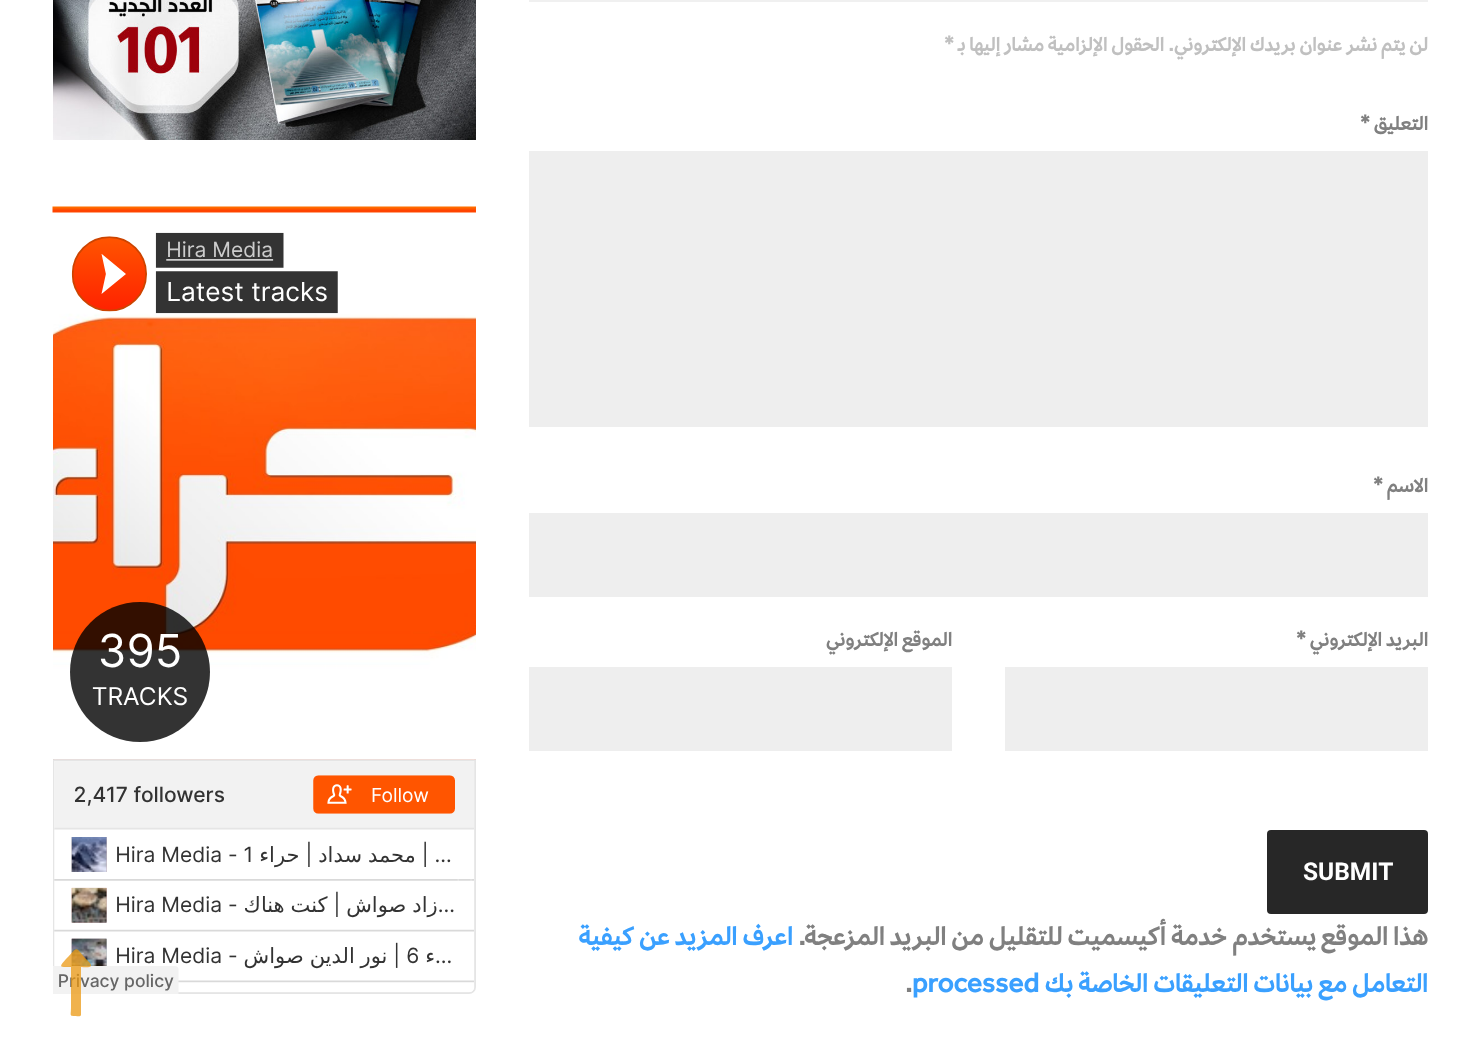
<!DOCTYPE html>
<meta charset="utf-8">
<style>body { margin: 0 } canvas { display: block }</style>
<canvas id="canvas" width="1480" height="1062"></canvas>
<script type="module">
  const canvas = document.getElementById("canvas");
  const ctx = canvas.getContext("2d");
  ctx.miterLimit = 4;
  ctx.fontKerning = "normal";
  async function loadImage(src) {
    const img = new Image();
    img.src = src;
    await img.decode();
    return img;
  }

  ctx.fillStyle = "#ffffff";
  ctx.fillRect(0, 0, 1480, 1062);
  ctx.fillStyle = "#f0f0f0";
  ctx.fillRect(529, 0, 899, 2);
  ctx.direction = "rtl";
  ctx.font = "bold 21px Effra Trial";
  ctx.fillStyle = "#c0c0c0";
  ctx.fillText("لن يتم نشر عنوان بريدك الإلكتروني.", 1428, 51);
  ctx.fillText("الحقول الإلزامية مشار إليها بـ", 1164, 51);
  ctx.direction = "ltr";
  ctx.fillText("*", 944, 51);
  ctx.direction = "rtl";
  ctx.fillStyle = "#808080";
  ctx.fillText("التعليق", 1428, 130);
  ctx.direction = "ltr";
  ctx.fillText("*", 1360, 130);
  ctx.fillStyle = "#eeeeee";
  ctx.fillRect(529, 151, 899, 276);
  ctx.direction = "rtl";
  ctx.fillStyle = "#808080";
  ctx.fillText("الاسم", 1428, 492);
  ctx.direction = "ltr";
  ctx.fillText("*", 1373, 492);
  ctx.fillStyle = "#eeeeee";
  ctx.fillRect(529, 513, 899, 84);
  ctx.direction = "rtl";
  ctx.fillStyle = "#808080";
  ctx.fillText("البريد الإلكتروني", 1428, 646);
  ctx.direction = "ltr";
  ctx.fillText("*", 1296, 646);
  ctx.fillStyle = "#eeeeee";
  ctx.fillRect(1005, 667, 423, 84);
  ctx.direction = "rtl";
  ctx.fillStyle = "#808080";
  ctx.fillText("الموقع الإلكتروني", 952, 646);
  ctx.fillStyle = "#eeeeee";
  ctx.fillRect(529, 667, 423, 84);
  ctx.fillStyle = "#272727";
  ctx.beginPath();
  ctx.roundRect(1267, 830, 161, 84, 4);
  ctx.fill();
  ctx.direction = "ltr";
  ctx.font = "bold 24.5px Roboto";
  ctx.fillStyle = "#ffffff";
  ctx.fillText("SUBMIT", 1303, 880);
  ctx.direction = "rtl";
  ctx.font = "bold 28px Effra Trial";
  ctx.fillStyle = "#808080";
  ctx.fillText("هذا الموقع يستخدم خدمة أكيسميت للتقليل من البريد المزعجة.", 1428, 945);
  ctx.fillStyle = "#3aa0ff";
  ctx.fillText("اعرف المزيد عن كيفية", 793, 945);
  ctx.fillText("التعامل مع بيانات التعليقات الخاصة بك", 1428, 992);
  ctx.direction = "ltr";
  ctx.fillText("processed", 912, 992);
  ctx.fillStyle = "#808080";
  ctx.fillText(".", 905, 992);
  ctx.drawImage(await loadImage("img1.png"), 53, 0, 423, 140);
  ctx.drawImage(await loadImage("img2.png"), 52, 206, 424, 788);
  ctx.fillStyle = "rgba(235, 152, 18, 0.75)";
  ctx.beginPath();
  ctx.moveTo(91, 966);
  ctx.bezierCurveTo(90, 968, 83, 967, 81, 967);
  ctx.lineTo(81, 1015);
  ctx.bezierCurveTo(81, 1017, 76, 1016, 76, 1016);
  ctx.bezierCurveTo(69, 1016, 71, 1016, 71, 1007);
  ctx.lineTo(71, 967);
  ctx.bezierCurveTo(60, 967, 58, 968, 66, 959);
  ctx.bezierCurveTo(79, 946, 74, 946, 86, 959);
  ctx.bezierCurveTo(87, 960, 92, 964, 91, 966);
  ctx.closePath();
  ctx.fill();
</script>
